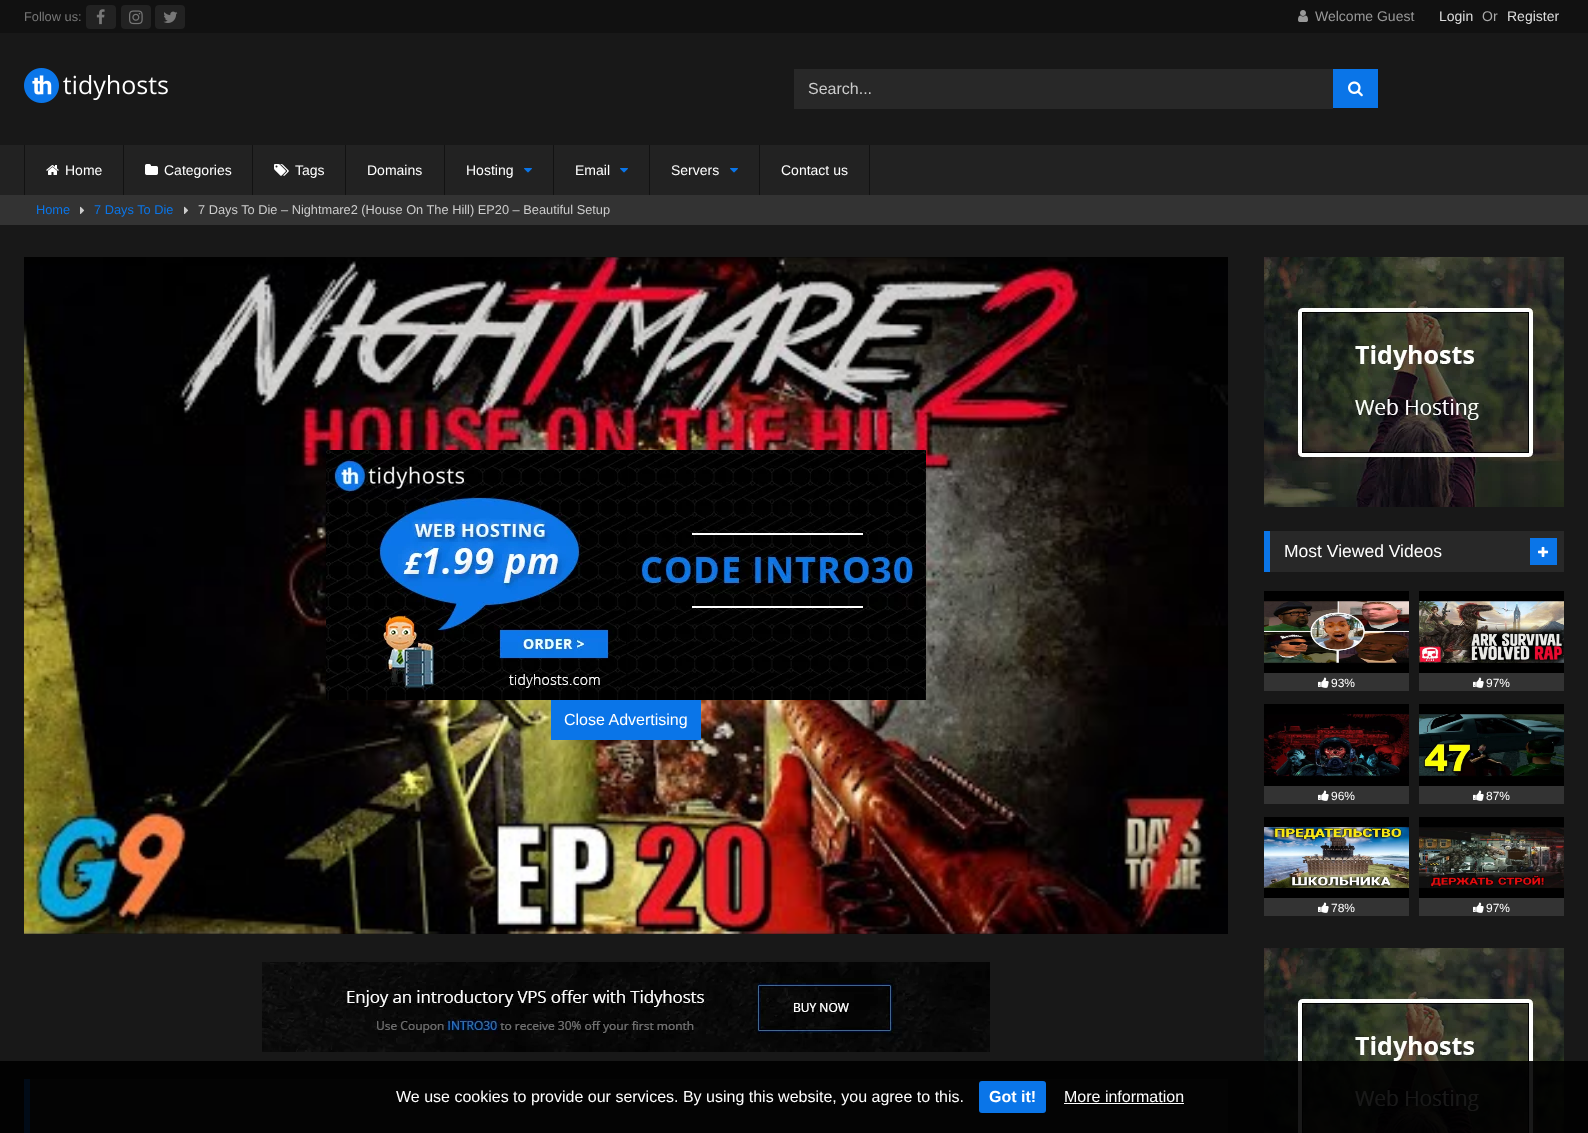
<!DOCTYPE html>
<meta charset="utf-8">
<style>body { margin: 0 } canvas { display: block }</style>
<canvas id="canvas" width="1588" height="1133"></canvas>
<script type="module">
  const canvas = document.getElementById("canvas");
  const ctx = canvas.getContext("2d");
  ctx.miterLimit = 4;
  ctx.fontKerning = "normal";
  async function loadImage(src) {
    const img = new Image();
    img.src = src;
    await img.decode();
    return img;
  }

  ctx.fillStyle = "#181818";
  ctx.fillRect(0, 0, 1588, 1133);
  ctx.fillStyle = "#111111";
  ctx.fillRect(0, 0, 1588, 33);
  ctx.font = "12.8px Liberation Sans";
  ctx.fillStyle = "#777777";
  ctx.fillText("Follow us:", 24, 21);
  ctx.fillStyle = "#222222";
  ctx.beginPath();
  ctx.roundRect(86, 5, 30, 24, 4);
  ctx.fill();
  ctx.drawImage(await loadImage("img1.png"), 96, 9, 9, 16);
  ctx.beginPath();
  ctx.roundRect(121, 5, 30, 24, 4);
  ctx.fill();
  ctx.drawImage(await loadImage("img2.png"), 129, 10, 14, 15);
  ctx.beginPath();
  ctx.roundRect(155, 5, 30, 24, 4);
  ctx.fill();
  ctx.drawImage(await loadImage("img3.png"), 163, 11, 15, 12);
  ctx.drawImage(await loadImage("img4.png"), 1298, 10, 10, 12);
  ctx.font = "14px Liberation Sans";
  ctx.fillStyle = "#999999";
  ctx.fillText("Welcome Guest", 1315, 21);
  ctx.fillStyle = "#dddddd";
  ctx.fillText("Login", 1439, 21);
  ctx.fillStyle = "#aaaaaa";
  ctx.fillText("Or", 1482, 21);
  ctx.fillStyle = "#dddddd";
  ctx.fillText("Register", 1507, 21);
  ctx.drawImage(await loadImage("img5.png"), 24, 68, 144, 35);
  ctx.fillStyle = "#282828";
  ctx.fillRect(794, 69, 539, 40);
  ctx.font = "16px Liberation Sans";
  ctx.fillStyle = "#cccccc";
  ctx.fillText("Search...", 808, 94);
  ctx.fillStyle = "#0a75e8";
  ctx.fillRect(1333, 69, 45, 39);
  ctx.drawImage(await loadImage("img6.png"), 1348, 81, 15, 16);
  ctx.fillStyle = "#222222";
  ctx.fillRect(0, 145, 1588, 50);
  ctx.fillStyle = "#121212";
  ctx.fillRect(123, 145, 1, 50);
  ctx.fillRect(24, 145, 1, 50);
  ctx.drawImage(await loadImage("img7.png"), 46, 165, 13, 10);
  ctx.font = "14px Liberation Sans";
  ctx.fillStyle = "#ffffff";
  ctx.fillText("Home", 65, 175);
  ctx.fillStyle = "#121212";
  ctx.fillRect(252, 145, 1, 50);
  ctx.drawImage(await loadImage("img8.png"), 145, 164, 13, 11);
  ctx.fillStyle = "#ffffff";
  ctx.fillText("Categories", 164, 175);
  ctx.fillStyle = "#121212";
  ctx.fillRect(345, 145, 1, 50);
  ctx.drawImage(await loadImage("img9.png"), 274, 164, 15, 12);
  ctx.fillStyle = "#ffffff";
  ctx.fillText("Tags", 295, 175);
  ctx.fillStyle = "#121212";
  ctx.fillRect(444, 145, 1, 50);
  ctx.fillStyle = "#ffffff";
  ctx.fillText("Domains", 367, 175);
  ctx.fillStyle = "#121212";
  ctx.fillRect(553, 145, 1, 50);
  ctx.fillStyle = "#ffffff";
  ctx.fillText("Hosting", 466, 175);
  ctx.drawImage(await loadImage("img10.png"), 524, 168, 8, 5);
  ctx.fillStyle = "#121212";
  ctx.fillRect(649, 145, 1, 50);
  ctx.fillStyle = "#ffffff";
  ctx.fillText("Email", 575, 175);
  ctx.drawImage(await loadImage("img10.png"), 620, 168, 8, 5);
  ctx.fillStyle = "#121212";
  ctx.fillRect(759, 145, 1, 50);
  ctx.fillStyle = "#ffffff";
  ctx.fillText("Servers", 671, 175);
  ctx.drawImage(await loadImage("img10.png"), 730, 168, 8, 5);
  ctx.fillStyle = "#121212";
  ctx.fillRect(869, 145, 1, 50);
  ctx.fillStyle = "#ffffff";
  ctx.fillText("Contact us", 781, 175);
  ctx.fillStyle = "#333333";
  ctx.fillRect(0, 195, 1588, 30);
  ctx.font = "12.8px Liberation Sans";
  ctx.fillStyle = "#0a75e8";
  ctx.fillText("Home", 36, 214);
  ctx.drawImage(await loadImage("img11.png"), 80, 206, 5, 8);
  ctx.fillText("7 Days To Die", 94, 214);
  ctx.drawImage(await loadImage("img11.png"), 184, 206, 5, 8);
  ctx.fillStyle = "#cccccc";
  ctx.fillText("7 Days To Die – Nightmare2 (House On The Hill) EP20 – Beautiful Setup", 198, 214);
  ctx.drawImage(await loadImage("img12.png"), 24, 257, 1204, 677);
  ctx.drawImage(await loadImage("img13.png"), 326, 450, 300, 250);
  ctx.drawImage(await loadImage("img14.png"), 626, 450, 300, 250);
  ctx.fillStyle = "#0a75e8";
  ctx.fillRect(551, 700, 150, 40);
  ctx.font = "16px Liberation Sans";
  ctx.fillStyle = "#ffffff";
  ctx.fillText("Close Advertising", 564, 725);
  ctx.drawImage(await loadImage("img15.png"), 262, 962, 728, 90);
  ctx.fillStyle = "#282828";
  ctx.fillRect(30, 1079, 1198, 54);
  ctx.fillStyle = "#0a75e8";
  ctx.fillRect(24, 1079, 6, 54);
  ctx.drawImage(await loadImage("img16.png"), 1264, 257, 300, 250);
  ctx.fillStyle = "#282828";
  ctx.fillRect(1270, 531, 294, 41);
  ctx.fillStyle = "#0a75e8";
  ctx.fillRect(1264, 531, 6, 41);
  ctx.font = "17.5px Liberation Sans";
  ctx.fillStyle = "#ffffff";
  ctx.fillText("Most Viewed Videos", 1284, 557);
  ctx.fillStyle = "#0a75e8";
  ctx.fillRect(1530, 538, 27, 27);
  ctx.drawImage(await loadImage("img17.png"), 1538, 546, 11, 11);
  ctx.fillStyle = "#000000";
  ctx.fillRect(1264, 591, 145, 82);
  ctx.drawImage(await loadImage("img18.png"), 1264, 600, 145, 64);
  ctx.fillStyle = "#333333";
  ctx.fillRect(1264, 673, 145, 18);
  ctx.drawImage(await loadImage("img19.png"), 1318, 677, 11, 11);
  ctx.font = "12px Liberation Sans";
  ctx.fillStyle = "#ffffff";
  ctx.fillText("93%", 1331, 687);
  ctx.fillStyle = "#000000";
  ctx.fillRect(1419, 591, 145, 82);
  ctx.drawImage(await loadImage("img20.png"), 1419, 601, 145, 62);
  ctx.fillStyle = "#333333";
  ctx.fillRect(1419, 673, 145, 18);
  ctx.drawImage(await loadImage("img19.png"), 1473, 677, 11, 11);
  ctx.fillStyle = "#ffffff";
  ctx.fillText("97%", 1486, 687);
  ctx.fillStyle = "#000000";
  ctx.fillRect(1264, 704, 145, 82);
  ctx.drawImage(await loadImage("img21.png"), 1264, 713, 145, 64);
  ctx.fillStyle = "#333333";
  ctx.fillRect(1264, 786, 145, 18);
  ctx.drawImage(await loadImage("img19.png"), 1318, 790, 11, 11);
  ctx.fillStyle = "#ffffff";
  ctx.fillText("96%", 1331, 800);
  ctx.fillStyle = "#000000";
  ctx.fillRect(1419, 704, 145, 82);
  ctx.drawImage(await loadImage("img22.png"), 1419, 714, 145, 63);
  ctx.fillStyle = "#333333";
  ctx.fillRect(1419, 786, 145, 18);
  ctx.drawImage(await loadImage("img19.png"), 1473, 790, 11, 11);
  ctx.fillStyle = "#ffffff";
  ctx.fillText("87%", 1486, 800);
  ctx.fillStyle = "#000000";
  ctx.fillRect(1264, 817, 145, 81);
  ctx.drawImage(await loadImage("img23.png"), 1264, 826, 145, 62);
  ctx.fillStyle = "#333333";
  ctx.fillRect(1264, 898, 145, 18);
  ctx.drawImage(await loadImage("img19.png"), 1318, 902, 11, 11);
  ctx.fillStyle = "#ffffff";
  ctx.fillText("78%", 1331, 912);
  ctx.fillStyle = "#000000";
  ctx.fillRect(1419, 817, 145, 81);
  ctx.drawImage(await loadImage("img24.png"), 1419, 827, 145, 62);
  ctx.fillStyle = "#333333";
  ctx.fillRect(1419, 898, 145, 18);
  ctx.drawImage(await loadImage("img19.png"), 1473, 902, 11, 11);
  ctx.fillStyle = "#ffffff";
  ctx.fillText("97%", 1486, 912);
  ctx.drawImage(await loadImage("img25.png"), 1264, 948, 300, 185);
  ctx.fillStyle = "rgba(0, 0, 0, 0.9)";
  ctx.fillRect(0, 1061, 1588, 72);
  ctx.font = "16px Liberation Sans";
  ctx.fillStyle = "#ffffff";
  ctx.fillText("We use cookies to provide our services. By using this website, you agree to this.", 396, 1102);
  ctx.fillStyle = "#0a75e8";
  ctx.beginPath();
  ctx.roundRect(979, 1081, 67, 32, 3);
  ctx.fill();
  ctx.font = "bold 16px Liberation Sans";
  ctx.fillStyle = "#ffffff";
  ctx.fillText("Got it!", 989, 1102);
  ctx.font = "16px Liberation Sans";
  ctx.fillText("More information", 1064, 1102);
  ctx.fillRect(1064, 1103, 120, 1);
</script>
